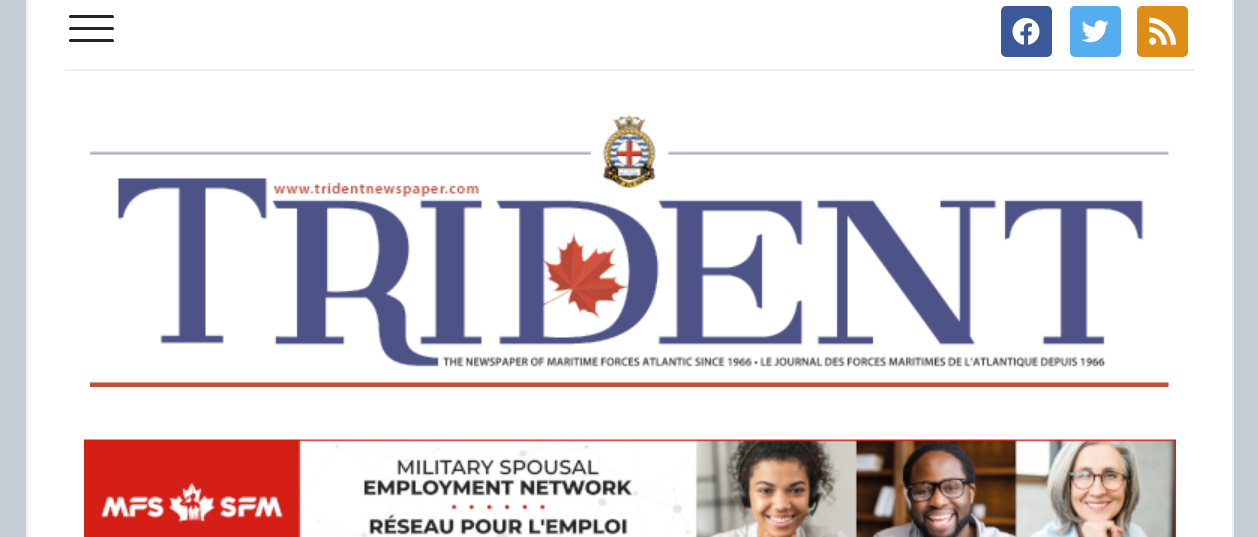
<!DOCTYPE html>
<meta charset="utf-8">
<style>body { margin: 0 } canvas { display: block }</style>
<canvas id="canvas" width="1258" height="537"></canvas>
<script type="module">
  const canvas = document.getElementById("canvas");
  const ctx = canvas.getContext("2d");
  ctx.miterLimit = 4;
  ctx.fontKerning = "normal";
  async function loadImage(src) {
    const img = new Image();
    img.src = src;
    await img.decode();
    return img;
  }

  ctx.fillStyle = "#c5ced7";
  ctx.fillRect(0, 0, 1258, 537);
  ctx.fillStyle = "#ffffff";
  ctx.fillRect(28, 0, 1204, 537);
  ctx.fillStyle = "#eeeeee";
  ctx.fillRect(1232, 0, 2, 537);
  ctx.fillRect(26, 0, 2, 537);
  ctx.fillRect(65, 69, 1129, 2);
  ctx.fillStyle = "#222222";
  ctx.beginPath();
  ctx.roundRect(69, 15, 45, 3, 1.5);
  ctx.fill();
  ctx.beginPath();
  ctx.roundRect(69, 27, 45, 3, 1.5);
  ctx.fill();
  ctx.beginPath();
  ctx.roundRect(69, 39, 45, 3, 1.5);
  ctx.fill();
  ctx.fillStyle = "#3b5998";
  ctx.beginPath();
  ctx.roundRect(1001, 6, 51, 51, 5);
  ctx.fill();
  ctx.drawImage(await loadImage("img1.png"), 1012, 18, 28, 27);
  ctx.fillStyle = "#55acee";
  ctx.beginPath();
  ctx.roundRect(1070, 6, 51, 51, 5);
  ctx.fill();
  ctx.drawImage(await loadImage("img2.png"), 1081, 20, 28, 23);
  ctx.fillStyle = "#de8e16";
  ctx.beginPath();
  ctx.roundRect(1137, 6, 51, 51, 5);
  ctx.fill();
  ctx.drawImage(await loadImage("img3.png"), 1149, 17, 27, 28);
  ctx.drawImage(await loadImage("img4.png"), 90, 115, 1079, 272);
  ctx.drawImage(await loadImage("img5.png"), 84, 439, 1092, 98);
</script>
